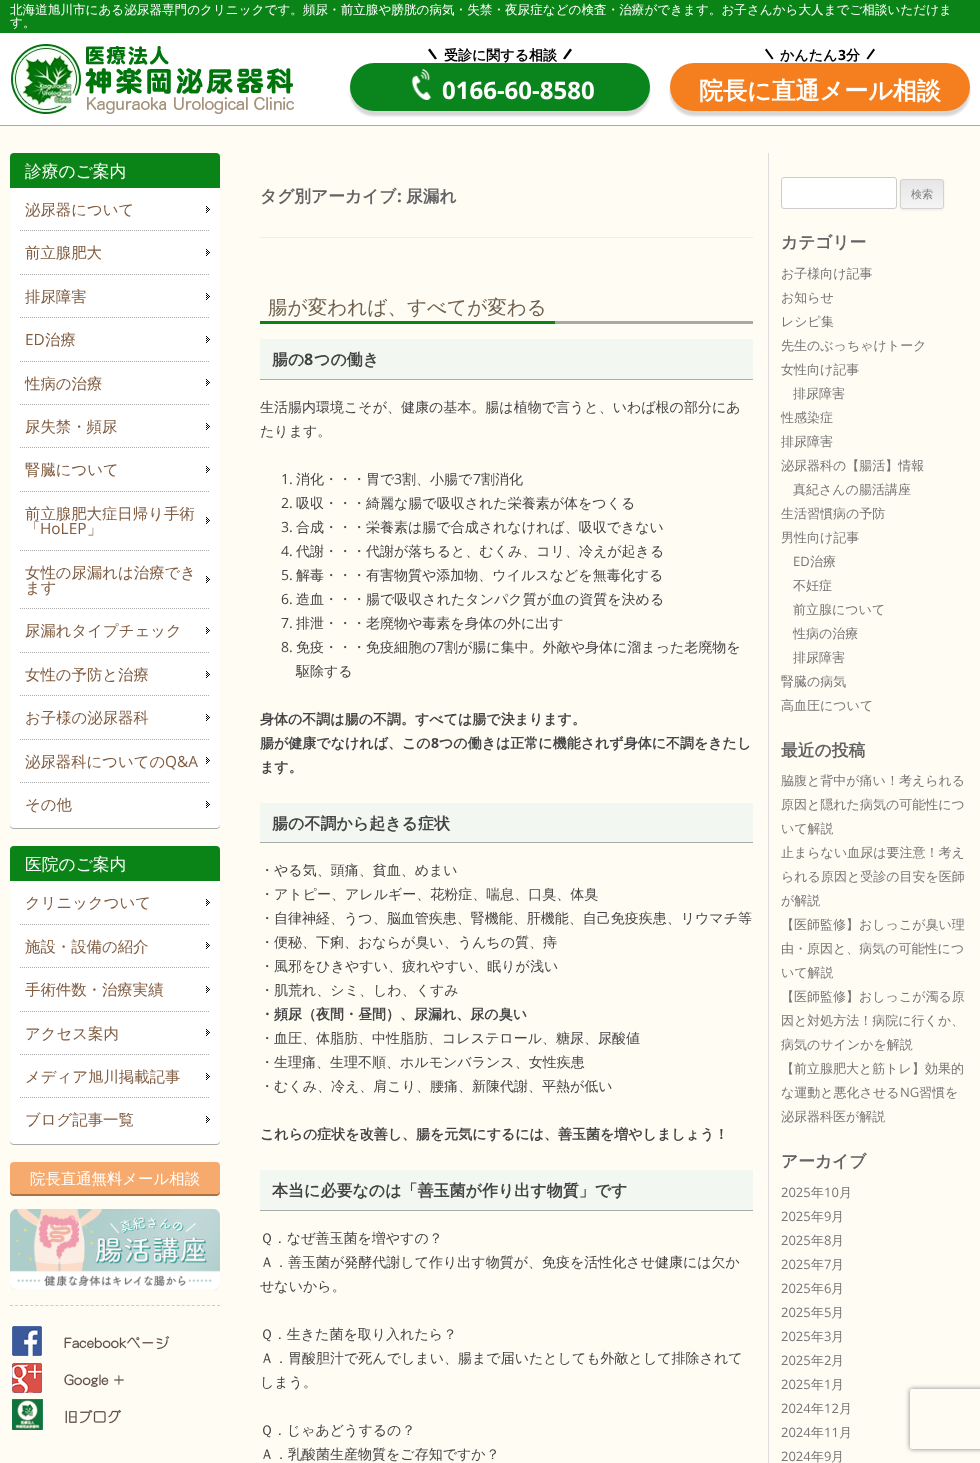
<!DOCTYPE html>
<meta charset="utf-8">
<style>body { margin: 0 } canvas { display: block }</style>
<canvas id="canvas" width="980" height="1463"></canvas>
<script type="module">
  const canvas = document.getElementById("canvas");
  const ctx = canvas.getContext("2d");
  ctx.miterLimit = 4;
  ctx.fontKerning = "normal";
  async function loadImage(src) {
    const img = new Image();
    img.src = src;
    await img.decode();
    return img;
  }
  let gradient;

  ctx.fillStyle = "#fffcf4";
  ctx.fillRect(0, 0, 980, 1463);
  ctx.fillStyle = "#aaaaaa";
  ctx.filter = "blur(0.5px)";
  ctx.beginPath();
  ctx.rect(0, 1, 980, 125);
  ctx.fill();
  ctx.filter = "none";
  ctx.fillStyle = "#ffffff";
  ctx.fillRect(0, 33, 980, 92);
  ctx.fillStyle = "#0a8416";
  ctx.fillRect(0, 0, 980, 33);
  ctx.font = "500 12.6px WenQuanYi Zen Hei";
  ctx.fillStyle = "#ffffff";
  ctx.fillText("北海道旭川市にある泌尿器専門のクリニックです。頻尿・前立腺や膀胱の病気・失禁・夜尿症などの検査・治療ができます。お子さんから大人までご相談いただけま", 10, 14);
  ctx.fillText("す。", 10, 27);
  ctx.drawImage(await loadImage("img1.png"), 11, 44, 283, 70);
  ctx.fillStyle = "#000000";
  ctx.beginPath();
  ctx.moveTo(428, 50);
  ctx.lineTo(430, 48.5);
  ctx.lineTo(437, 58.5);
  ctx.lineTo(435, 59.5);
  ctx.closePath();
  ctx.fill();
  ctx.font = "bold 14px WenQuanYi Zen Hei";
  ctx.fillText("受診に関する相談", 444, 60);
  ctx.beginPath();
  ctx.moveTo(570, 48.5);
  ctx.lineTo(572, 50);
  ctx.lineTo(565, 59.5);
  ctx.lineTo(563, 58.5);
  ctx.closePath();
  ctx.fill();
  ctx.fillStyle = "rgba(0, 0, 0, 0.16)";
  ctx.filter = "blur(1px)";
  ctx.beginPath();
  ctx.roundRect(350, 68, 300, 48, 24);
  ctx.fill();
  ctx.filter = "none";
  ctx.fillStyle = "#0a841c";
  ctx.beginPath();
  ctx.roundRect(350, 63, 300, 48, 24);
  ctx.fill();
  ctx.drawImage(await loadImage("img2.png"), 411, 69, 21, 31);
  ctx.font = "bold 24px Open Sans";
  ctx.fillStyle = "#ffffff";
  ctx.fillText("0166-60-8580", 442, 99);
  ctx.fillStyle = "#000000";
  ctx.beginPath();
  ctx.moveTo(765, 50);
  ctx.lineTo(766.5, 48.5);
  ctx.lineTo(773.5, 58.5);
  ctx.lineTo(772, 59.5);
  ctx.closePath();
  ctx.fill();
  ctx.font = "bold 14px WenQuanYi Zen Hei";
  ctx.fillText("かんたん", 780, 60);
  ctx.font = "bold 14px Open Sans";
  ctx.fillText("3", 838, 60);
  ctx.font = "bold 14px WenQuanYi Zen Hei";
  ctx.fillText("分", 846, 60);
  ctx.beginPath();
  ctx.moveTo(873.5, 48.5);
  ctx.lineTo(875, 50);
  ctx.lineTo(868, 59.5);
  ctx.lineTo(866.5, 58.5);
  ctx.closePath();
  ctx.fill();
  ctx.fillStyle = "rgba(0, 0, 0, 0.16)";
  ctx.filter = "blur(1px)";
  ctx.beginPath();
  ctx.roundRect(670, 68, 300, 48, 24);
  ctx.fill();
  ctx.filter = "none";
  ctx.fillStyle = "#f57f1e";
  ctx.beginPath();
  ctx.roundRect(670, 63, 300, 48, 24);
  ctx.fill();
  ctx.font = "bold 24px WenQuanYi Zen Hei";
  ctx.fillStyle = "#ffffff";
  ctx.fillText("院長に直通メール相談", 699, 99);
  ctx.fillStyle = "#aaaaaa";
  ctx.filter = "blur(0.5px)";
  ctx.beginPath();
  ctx.roundRect(10, 154, 210, 675, 4);
  ctx.fill();
  ctx.filter = "none";
  ctx.fillStyle = "#ffffff";
  ctx.beginPath();
  ctx.roundRect(10, 153, 210, 675, 4);
  ctx.fill();
  ctx.fillStyle = "#0a8416";
  ctx.beginPath();
  ctx.roundRect(10, 153, 210, 35, [4, 4, 0, 0]);
  ctx.fill();
  ctx.font = "500 16.75px WenQuanYi Zen Hei";
  ctx.fillStyle = "#ffffff";
  ctx.fillText("診療のご案内", 25, 177);
  ctx.drawImage(await loadImage("img3.png"), 206, 206, 4, 7);
  ctx.beginPath();
  ctx.moveTo(20, 230.5);
  ctx.lineTo(210, 230.5);
  ctx.strokeStyle = "#aaaaaa";
  ctx.setLineDash([1, 1]);
  ctx.stroke();
  ctx.font = "500 15.4px WenQuanYi Zen Hei";
  ctx.fillStyle = "#805c40";
  ctx.fillText("泌尿器について", 25, 215);
  ctx.drawImage(await loadImage("img3.png"), 206, 249, 4, 7);
  ctx.beginPath();
  ctx.moveTo(20, 274.5);
  ctx.lineTo(210, 274.5);
  ctx.stroke();
  ctx.fillText("前立腺肥大", 25, 258);
  ctx.drawImage(await loadImage("img3.png"), 206, 293, 4, 7);
  ctx.beginPath();
  ctx.moveTo(20, 317.5);
  ctx.lineTo(210, 317.5);
  ctx.stroke();
  ctx.fillText("排尿障害", 25, 302);
  ctx.drawImage(await loadImage("img3.png"), 206, 336, 4, 7);
  ctx.beginPath();
  ctx.moveTo(20, 361.5);
  ctx.lineTo(210, 361.5);
  ctx.stroke();
  ctx.font = "15.4px Open Sans";
  ctx.fillText("ED", 25, 345);
  ctx.font = "500 15.4px WenQuanYi Zen Hei";
  ctx.fillText("治療", 45, 345);
  ctx.drawImage(await loadImage("img3.png"), 206, 379, 4, 7);
  ctx.beginPath();
  ctx.moveTo(20, 404.5);
  ctx.lineTo(210, 404.5);
  ctx.stroke();
  ctx.fillText("性病の治療", 25, 389);
  ctx.drawImage(await loadImage("img3.png"), 206, 423, 4, 7);
  ctx.beginPath();
  ctx.moveTo(20, 447.5);
  ctx.lineTo(210, 447.5);
  ctx.stroke();
  ctx.fillText("尿失禁・頻尿", 25, 432);
  ctx.drawImage(await loadImage("img3.png"), 206, 466, 4, 7);
  ctx.beginPath();
  ctx.moveTo(20, 491.5);
  ctx.lineTo(210, 491.5);
  ctx.stroke();
  ctx.fillText("腎臓について", 25, 475);
  ctx.drawImage(await loadImage("img3.png"), 206, 517, 4, 7);
  ctx.beginPath();
  ctx.moveTo(20, 550.5);
  ctx.lineTo(210, 550.5);
  ctx.stroke();
  ctx.fillText("前立腺肥大症日帰り手術", 25, 519);
  ctx.fillText("「", 25, 534);
  ctx.font = "15.4px Open Sans";
  ctx.fillText("HoLEP", 40, 534);
  ctx.font = "500 15.4px WenQuanYi Zen Hei";
  ctx.fillText("」", 87, 534);
  ctx.drawImage(await loadImage("img3.png"), 206, 576, 4, 7);
  ctx.beginPath();
  ctx.moveTo(20, 608.5);
  ctx.lineTo(210, 608.5);
  ctx.stroke();
  ctx.fillText("女性の尿漏れは治療でき", 25, 578);
  ctx.fillText("ます", 25, 593);
  ctx.drawImage(await loadImage("img3.png"), 206, 627, 4, 7);
  ctx.beginPath();
  ctx.moveTo(20, 652.5);
  ctx.lineTo(210, 652.5);
  ctx.stroke();
  ctx.fillText("尿漏れタイプチェック", 25, 636);
  ctx.drawImage(await loadImage("img3.png"), 206, 671, 4, 7);
  ctx.beginPath();
  ctx.moveTo(20, 695.5);
  ctx.lineTo(210, 695.5);
  ctx.stroke();
  ctx.fillText("女性の予防と治療", 25, 680);
  ctx.drawImage(await loadImage("img3.png"), 206, 714, 4, 7);
  ctx.beginPath();
  ctx.moveTo(20, 739.5);
  ctx.lineTo(210, 739.5);
  ctx.stroke();
  ctx.fillText("お子様の泌尿器科", 25, 723);
  ctx.drawImage(await loadImage("img3.png"), 206, 757, 4, 7);
  ctx.beginPath();
  ctx.moveTo(20, 782.5);
  ctx.lineTo(210, 782.5);
  ctx.stroke();
  ctx.fillText("泌尿器科についての", 25, 767);
  ctx.font = "15.4px Open Sans";
  ctx.fillText("Q&A", 165, 767);
  ctx.drawImage(await loadImage("img3.png"), 206, 801, 4, 7);
  ctx.font = "500 15.4px WenQuanYi Zen Hei";
  ctx.fillText("その他", 25, 810);
  ctx.fillStyle = "#aaaaaa";
  ctx.filter = "blur(0.5px)";
  ctx.beginPath();
  ctx.roundRect(10, 847, 210, 298, 4);
  ctx.fill();
  ctx.filter = "none";
  ctx.fillStyle = "#ffffff";
  ctx.beginPath();
  ctx.roundRect(10, 846, 210, 298, 4);
  ctx.fill();
  ctx.fillStyle = "#0a8416";
  ctx.beginPath();
  ctx.roundRect(10, 846, 210, 35, [4, 4, 0, 0]);
  ctx.fill();
  ctx.font = "500 16.75px WenQuanYi Zen Hei";
  ctx.fillStyle = "#ffffff";
  ctx.fillText("医院のご案内", 25, 870);
  ctx.drawImage(await loadImage("img3.png"), 206, 899, 4, 7);
  ctx.beginPath();
  ctx.moveTo(20, 924.5);
  ctx.lineTo(210, 924.5);
  ctx.stroke();
  ctx.font = "500 15.4px WenQuanYi Zen Hei";
  ctx.fillStyle = "#805c40";
  ctx.fillText("クリニックついて", 25, 908);
  ctx.drawImage(await loadImage("img3.png"), 206, 942, 4, 7);
  ctx.beginPath();
  ctx.moveTo(20, 967.5);
  ctx.lineTo(210, 967.5);
  ctx.stroke();
  ctx.fillText("施設・設備の紹介", 25, 952);
  ctx.drawImage(await loadImage("img3.png"), 206, 986, 4, 7);
  ctx.beginPath();
  ctx.moveTo(20, 1011.5);
  ctx.lineTo(210, 1011.5);
  ctx.stroke();
  ctx.fillText("手術件数・治療実績", 25, 995);
  ctx.drawImage(await loadImage("img3.png"), 206, 1029, 4, 7);
  ctx.beginPath();
  ctx.moveTo(20, 1054.5);
  ctx.lineTo(210, 1054.5);
  ctx.stroke();
  ctx.fillText("アクセス案内", 25, 1039);
  ctx.drawImage(await loadImage("img3.png"), 206, 1073, 4, 7);
  ctx.beginPath();
  ctx.moveTo(20, 1097.5);
  ctx.lineTo(210, 1097.5);
  ctx.stroke();
  ctx.fillText("メディア旭川掲載記事", 25, 1082);
  ctx.drawImage(await loadImage("img3.png"), 206, 1116, 4, 7);
  ctx.fillText("ブログ記事一覧", 25, 1125);
  ctx.fillStyle = "#ad703f";
  ctx.beginPath();
  ctx.moveTo(10, 1190);
  ctx.bezierCurveTo(10, 1193, 10, 1195, 13, 1196);
  ctx.lineTo(217, 1196);
  ctx.bezierCurveTo(220, 1195, 220, 1193, 220, 1190);
  ctx.bezierCurveTo(220, 1192, 218, 1194, 216, 1194);
  ctx.lineTo(14, 1194);
  ctx.bezierCurveTo(12, 1194, 10, 1192, 10, 1190);
  ctx.closePath();
  ctx.fill();
  ctx.fillStyle = "#f7aa6d";
  ctx.beginPath();
  ctx.roundRect(10, 1162, 210, 32, 4);
  ctx.fill();
  ctx.fillStyle = "#ffffff";
  ctx.fillText("院長直通無料メール相談", 30, 1184);
  ctx.drawImage(await loadImage("img4.png"), 10, 1209, 210, 81);
  ctx.beginPath();
  ctx.moveTo(10, 1305.5);
  ctx.lineTo(220, 1305.5);
  ctx.strokeStyle = "#cccccc";
  ctx.setLineDash([3, 2.05]);
  ctx.stroke();
  ctx.drawImage(await loadImage("img5.png"), 12, 1326, 158, 30);
  ctx.drawImage(await loadImage("img6.png"), 12, 1363, 112, 30);
  ctx.drawImage(await loadImage("img7.png"), 12, 1399, 110, 31);
  ctx.fillStyle = "#dddddd";
  ctx.fillRect(768, 153, 1, 1310);
  ctx.fillStyle = "#ededed";
  ctx.fillRect(260, 237, 493, 1);
  ctx.font = "bold 16.75px WenQuanYi Zen Hei";
  ctx.fillStyle = "#636363";
  ctx.fillText("タグ別アーカイブ", 260, 202);
  ctx.font = "bold 16.75px Open Sans";
  ctx.fillText(":", 397, 202);
  ctx.font = "bold 16.75px WenQuanYi Zen Hei";
  ctx.fillText("尿漏れ", 406, 202);
  ctx.fillStyle = "#aaa8a4";
  ctx.fillRect(555, 321, 198, 3);
  ctx.fillStyle = "#0a8416";
  ctx.fillRect(260, 321, 295, 3);
  ctx.font = "500 19.6px WenQuanYi Zen Hei";
  ctx.fillStyle = "#70614e";
  ctx.fillText("腸が変われば、すべてが変わる", 268, 314);
  ctx.fillStyle = "#f2f7f2";
  ctx.fillRect(260, 339, 493, 40);
  ctx.fillStyle = "#aaaaaa";
  ctx.fillRect(260, 379, 493, 1);
  ctx.font = "bold 16px WenQuanYi Zen Hei";
  ctx.fillStyle = "#444444";
  ctx.fillText("腸の", 272, 365);
  ctx.font = "bold 16px Open Sans";
  ctx.fillText("8", 304, 365);
  ctx.font = "bold 16px WenQuanYi Zen Hei";
  ctx.fillText("つの働き", 314, 365);
  ctx.font = "500 14px WenQuanYi Zen Hei";
  ctx.fillText("生活腸内環境こそが、健康の基本。腸は植物で言うと、いわば根の部分にあ", 260, 412);
  ctx.fillText("たります。", 260, 436);
  ctx.font = "14px Open Sans";
  ctx.fillText("1.", 281, 484);
  ctx.font = "500 14px WenQuanYi Zen Hei";
  ctx.fillText("消化・・・胃で", 296, 484);
  ctx.font = "14px Open Sans";
  ctx.fillText("3", 394, 484);
  ctx.font = "500 14px WenQuanYi Zen Hei";
  ctx.fillText("割、小腸で", 402, 484);
  ctx.font = "14px Open Sans";
  ctx.fillText("7", 473, 484);
  ctx.font = "500 14px WenQuanYi Zen Hei";
  ctx.fillText("割消化", 481, 484);
  ctx.font = "14px Open Sans";
  ctx.fillText("2.", 281, 508);
  ctx.font = "500 14px WenQuanYi Zen Hei";
  ctx.fillText("吸収・・・綺麗な腸で吸収された栄養素が体をつくる", 296, 508);
  ctx.font = "14px Open Sans";
  ctx.fillText("3.", 281, 532);
  ctx.font = "500 14px WenQuanYi Zen Hei";
  ctx.fillText("合成・・・栄養素は腸で合成されなければ、吸収できない", 296, 532);
  ctx.font = "14px Open Sans";
  ctx.fillText("4.", 281, 556);
  ctx.font = "500 14px WenQuanYi Zen Hei";
  ctx.fillText("代謝・・・代謝が落ちると、むくみ、コリ、冷えが起きる", 296, 556);
  ctx.font = "14px Open Sans";
  ctx.fillText("5.", 281, 580);
  ctx.font = "500 14px WenQuanYi Zen Hei";
  ctx.fillText("解毒・・・有害物質や添加物、ウイルスなどを無毒化する", 296, 580);
  ctx.font = "14px Open Sans";
  ctx.fillText("6.", 281, 604);
  ctx.font = "500 14px WenQuanYi Zen Hei";
  ctx.fillText("造血・・・腸で吸収されたタンパク質が血の資質を決める", 296, 604);
  ctx.font = "14px Open Sans";
  ctx.fillText("7.", 281, 628);
  ctx.font = "500 14px WenQuanYi Zen Hei";
  ctx.fillText("排泄・・・老廃物や毒素を身体の外に出す", 296, 628);
  ctx.font = "14px Open Sans";
  ctx.fillText("8.", 281, 652);
  ctx.font = "500 14px WenQuanYi Zen Hei";
  ctx.fillText("免疫・・・免疫細胞の", 296, 652);
  ctx.font = "14px Open Sans";
  ctx.fillText("7", 436, 652);
  ctx.font = "500 14px WenQuanYi Zen Hei";
  ctx.fillText("割が腸に集中。外敵や身体に溜まった老廃物を", 444, 652);
  ctx.fillText("駆除する", 296, 676);
  ctx.font = "bold 14px WenQuanYi Zen Hei";
  ctx.fillText("身体の不調は腸の不調。すべては腸で決まります。", 260, 724);
  ctx.fillText("腸が健康でなければ、この", 260, 748);
  ctx.font = "bold 14px Open Sans";
  ctx.fillText("8", 431, 748);
  ctx.font = "bold 14px WenQuanYi Zen Hei";
  ctx.fillText("つの働きは正常に機能されず身体に不調をきたし", 439, 748);
  ctx.fillText("ます。", 260, 772);
  ctx.fillStyle = "#f2f7f2";
  ctx.fillRect(260, 803, 493, 39);
  ctx.fillStyle = "#aaaaaa";
  ctx.fillRect(260, 842, 493, 1);
  ctx.font = "bold 16px WenQuanYi Zen Hei";
  ctx.fillStyle = "#444444";
  ctx.fillText("腸の不調から起きる症状", 272, 829);
  ctx.font = "500 14px WenQuanYi Zen Hei";
  ctx.fillText("・やる気、頭痛、貧血、めまい", 260, 875);
  ctx.fillText("・アトピー、アレルギー、花粉症、喘息、口臭、体臭", 260, 899);
  ctx.fillText("・自律神経、うつ、脳血管疾患、腎機能、肝機能、自己免疫疾患、リウマチ等", 260, 923);
  ctx.fillText("・便秘、下痢、おならが臭い、うんちの質、痔", 260, 947);
  ctx.fillText("・風邪をひきやすい、疲れやすい、眠りが浅い", 260, 971);
  ctx.fillText("・肌荒れ、シミ、しわ、くすみ", 260, 995);
  ctx.font = "bold 14px WenQuanYi Zen Hei";
  ctx.fillText("・頻尿（夜間・昼間）、尿漏れ、尿の臭い", 260, 1019);
  ctx.font = "500 14px WenQuanYi Zen Hei";
  ctx.fillText("・血圧、体脂肪、中性脂肪、コレステロール、糖尿、尿酸値", 260, 1043);
  ctx.fillText("・生理痛、生理不順、ホルモンバランス、女性疾患", 260, 1067);
  ctx.fillText("・むくみ、冷え、肩こり、腰痛、新陳代謝、平熱が低い", 260, 1091);
  ctx.font = "bold 14px WenQuanYi Zen Hei";
  ctx.fillText("これらの症状を改善し、腸を元気にするには、善玉菌を増やしましょう！", 260, 1139);
  ctx.fillStyle = "#f2f7f2";
  ctx.fillRect(260, 1170, 493, 40);
  ctx.fillStyle = "#aaaaaa";
  ctx.fillRect(260, 1210, 493, 1);
  ctx.font = "bold 16px WenQuanYi Zen Hei";
  ctx.fillStyle = "#444444";
  ctx.fillText("本当に必要なのは「善玉菌が作り出す物質」です", 272, 1196);
  ctx.font = "500 14px WenQuanYi Zen Hei";
  ctx.fillText("Ｑ．なぜ善玉菌を増やすの？", 260, 1243);
  ctx.fillText("Ａ．善玉菌が発酵代謝して作り出す物質が、免疫を活性化させ健康には欠か", 260, 1267);
  ctx.fillText("せないから。", 260, 1291);
  ctx.fillText("Ｑ．生きた菌を取り入れたら？", 260, 1339);
  ctx.fillText("Ａ．胃酸胆汁で死んでしまい、腸まで届いたとしても外敵として排除されて", 260, 1363);
  ctx.fillText("しまう。", 260, 1387);
  ctx.fillText("Ｑ．じゃあどうするの？", 260, 1435);
  ctx.fillText("Ａ．乳酸菌生産物質をご存知ですか？", 260, 1459);
  ctx.fillStyle = "#ffffff";
  ctx.beginPath();
  ctx.roundRect(781.5, 177.5, 115, 31, 2.5);
  ctx.fill();
  ctx.setLineDash([]);
  ctx.stroke();
  ctx.fillStyle = "rgba(64, 64, 64, 0.1)";
  ctx.filter = "blur(1px)";
  ctx.beginPath();
  ctx.roundRect(900, 180, 44, 30, 3);
  ctx.fill();
  ctx.filter = "none";
  ctx.save();
  ctx.beginPath();
  ctx.roundRect(900, 179, 44, 30, 3);
  ctx.clip();
  gradient = ctx.createLinearGradient(922, 208, 922, 180);
  gradient.addColorStop(0, "#f4f4f4");
  gradient.addColorStop(1, "#e6e6e6");
  ctx.fillStyle = gradient;
  ctx.fillRect(900, 180, 44, 28);
  ctx.restore();
  ctx.beginPath();
  ctx.roundRect(900.5, 179.5, 43, 29, 2.5);
  ctx.strokeStyle = "#d2d2d2";
  ctx.stroke();
  ctx.font = "500 11px WenQuanYi Zen Hei";
  ctx.fillStyle = "#7c7c7c";
  ctx.fillText("検索", 911, 198);
  ctx.font = "bold 16.75px WenQuanYi Zen Hei";
  ctx.fillStyle = "#636363";
  ctx.fillText("カテゴリー", 781, 248);
  ctx.font = "500 13px WenQuanYi Zen Hei";
  ctx.fillStyle = "#757575";
  ctx.fillText("お子様向け記事", 781, 278);
  ctx.fillText("お知らせ", 781, 302);
  ctx.fillText("レシピ集", 781, 326);
  ctx.fillText("先生のぶっちゃけトーク", 781, 350);
  ctx.fillText("女性向け記事", 781, 374);
  ctx.fillText("排尿障害", 793, 398);
  ctx.fillText("性感染症", 781, 422);
  ctx.fillText("排尿障害", 781, 446);
  ctx.fillText("泌尿器科の【腸活】情報", 781, 470);
  ctx.fillText("真紀さんの腸活講座", 793, 494);
  ctx.fillText("生活習慣病の予防", 781, 518);
  ctx.fillText("男性向け記事", 781, 542);
  ctx.font = "13px Open Sans";
  ctx.fillText("ED", 793, 566);
  ctx.font = "500 13px WenQuanYi Zen Hei";
  ctx.fillText("治療", 810, 566);
  ctx.fillText("不妊症", 793, 590);
  ctx.fillText("前立腺について", 793, 614);
  ctx.fillText("性病の治療", 793, 638);
  ctx.fillText("排尿障害", 793, 662);
  ctx.fillText("腎臓の病気", 781, 686);
  ctx.fillText("高血圧について", 781, 710);
  ctx.font = "bold 16.75px WenQuanYi Zen Hei";
  ctx.fillStyle = "#636363";
  ctx.fillText("最近の投稿", 781, 756);
  ctx.font = "500 13px WenQuanYi Zen Hei";
  ctx.fillStyle = "#757575";
  ctx.fillText("脇腹と背中が痛い！考えられる", 781, 785);
  ctx.fillText("原因と隠れた病気の可能性につ", 781, 809);
  ctx.fillText("いて解説", 781, 833);
  ctx.fillText("止まらない血尿は要注意！考え", 781, 857);
  ctx.fillText("られる原因と受診の目安を医師", 781, 881);
  ctx.fillText("が解説", 781, 905);
  ctx.fillText("【医師監修】おしっこが臭い理", 781, 929);
  ctx.fillText("由・原因と、病気の可能性につ", 781, 953);
  ctx.fillText("いて解説", 781, 977);
  ctx.fillText("【医師監修】おしっこが濁る原", 781, 1001);
  ctx.fillText("因と対処方法！病院に行くか、", 781, 1025);
  ctx.fillText("病気のサインかを解説", 781, 1049);
  ctx.fillText("【前立腺肥大と筋トレ】効果的", 781, 1073);
  ctx.fillText("な運動と悪化させる", 781, 1097);
  ctx.font = "13px Open Sans";
  ctx.fillText("NG", 900, 1097);
  ctx.font = "500 13px WenQuanYi Zen Hei";
  ctx.fillText("習慣を", 919, 1097);
  ctx.fillText("泌尿器科医が解説", 781, 1121);
  ctx.font = "bold 16.75px WenQuanYi Zen Hei";
  ctx.fillStyle = "#636363";
  ctx.fillText("アーカイブ", 781, 1167);
  ctx.font = "13px Open Sans";
  ctx.fillStyle = "#757575";
  ctx.fillText("2025", 781, 1197);
  ctx.font = "500 13px WenQuanYi Zen Hei";
  ctx.fillText("年", 811, 1197);
  ctx.font = "13px Open Sans";
  ctx.fillText("10", 824, 1197);
  ctx.font = "500 13px WenQuanYi Zen Hei";
  ctx.fillText("月", 839, 1197);
  ctx.font = "13px Open Sans";
  ctx.fillText("2025", 781, 1221);
  ctx.font = "500 13px WenQuanYi Zen Hei";
  ctx.fillText("年", 811, 1221);
  ctx.font = "13px Open Sans";
  ctx.fillText("9", 824, 1221);
  ctx.font = "500 13px WenQuanYi Zen Hei";
  ctx.fillText("月", 831, 1221);
  ctx.font = "13px Open Sans";
  ctx.fillText("2025", 781, 1245);
  ctx.font = "500 13px WenQuanYi Zen Hei";
  ctx.fillText("年", 811, 1245);
  ctx.font = "13px Open Sans";
  ctx.fillText("8", 824, 1245);
  ctx.font = "500 13px WenQuanYi Zen Hei";
  ctx.fillText("月", 831, 1245);
  ctx.font = "13px Open Sans";
  ctx.fillText("2025", 781, 1269);
  ctx.font = "500 13px WenQuanYi Zen Hei";
  ctx.fillText("年", 811, 1269);
  ctx.font = "13px Open Sans";
  ctx.fillText("7", 824, 1269);
  ctx.font = "500 13px WenQuanYi Zen Hei";
  ctx.fillText("月", 831, 1269);
  ctx.font = "13px Open Sans";
  ctx.fillText("2025", 781, 1293);
  ctx.font = "500 13px WenQuanYi Zen Hei";
  ctx.fillText("年", 811, 1293);
  ctx.font = "13px Open Sans";
  ctx.fillText("6", 824, 1293);
  ctx.font = "500 13px WenQuanYi Zen Hei";
  ctx.fillText("月", 831, 1293);
  ctx.font = "13px Open Sans";
  ctx.fillText("2025", 781, 1317);
  ctx.font = "500 13px WenQuanYi Zen Hei";
  ctx.fillText("年", 811, 1317);
  ctx.font = "13px Open Sans";
  ctx.fillText("5", 824, 1317);
  ctx.font = "500 13px WenQuanYi Zen Hei";
  ctx.fillText("月", 831, 1317);
  ctx.font = "13px Open Sans";
  ctx.fillText("2025", 781, 1341);
  ctx.font = "500 13px WenQuanYi Zen Hei";
  ctx.fillText("年", 811, 1341);
  ctx.font = "13px Open Sans";
  ctx.fillText("3", 824, 1341);
  ctx.font = "500 13px WenQuanYi Zen Hei";
  ctx.fillText("月", 831, 1341);
  ctx.font = "13px Open Sans";
  ctx.fillText("2025", 781, 1365);
  ctx.font = "500 13px WenQuanYi Zen Hei";
  ctx.fillText("年", 811, 1365);
  ctx.font = "13px Open Sans";
  ctx.fillText("2", 824, 1365);
  ctx.font = "500 13px WenQuanYi Zen Hei";
  ctx.fillText("月", 831, 1365);
  ctx.font = "13px Open Sans";
  ctx.fillText("2025", 781, 1389);
  ctx.font = "500 13px WenQuanYi Zen Hei";
  ctx.fillText("年", 811, 1389);
  ctx.font = "13px Open Sans";
  ctx.fillText("1", 824, 1389);
  ctx.font = "500 13px WenQuanYi Zen Hei";
  ctx.fillText("月", 831, 1389);
  ctx.font = "13px Open Sans";
  ctx.fillText("2024", 781, 1413);
  ctx.font = "500 13px WenQuanYi Zen Hei";
  ctx.fillText("年", 811, 1413);
  ctx.font = "13px Open Sans";
  ctx.fillText("12", 824, 1413);
  ctx.font = "500 13px WenQuanYi Zen Hei";
  ctx.fillText("月", 839, 1413);
  ctx.font = "13px Open Sans";
  ctx.fillText("2024", 781, 1437);
  ctx.font = "500 13px WenQuanYi Zen Hei";
  ctx.fillText("年", 811, 1437);
  ctx.font = "13px Open Sans";
  ctx.fillText("11", 824, 1437);
  ctx.font = "500 13px WenQuanYi Zen Hei";
  ctx.fillText("月", 839, 1437);
  ctx.font = "13px Open Sans";
  ctx.fillText("2024", 781, 1461);
  ctx.font = "500 13px WenQuanYi Zen Hei";
  ctx.fillText("年", 811, 1461);
  ctx.font = "13px Open Sans";
  ctx.fillText("9", 824, 1461);
  ctx.font = "500 13px WenQuanYi Zen Hei";
  ctx.fillText("月", 831, 1461);
  ctx.save();
  ctx.beginPath();
  ctx.moveTo(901, 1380);
  ctx.lineTo(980, 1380);
  ctx.lineTo(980, 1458);
  ctx.lineTo(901, 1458);
  ctx.closePath();
  ctx.moveTo(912, 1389);
  ctx.lineTo(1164, 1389);
  ctx.bezierCurveTo(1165, 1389, 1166, 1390, 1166, 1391);
  ctx.lineTo(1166, 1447);
  ctx.bezierCurveTo(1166, 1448, 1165, 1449, 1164, 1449);
  ctx.lineTo(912, 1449);
  ctx.bezierCurveTo(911, 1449, 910, 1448, 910, 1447);
  ctx.lineTo(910, 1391);
  ctx.bezierCurveTo(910, 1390, 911, 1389, 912, 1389);
  ctx.closePath();
  ctx.clip("evenodd");
  ctx.fillStyle = "#808080";
  ctx.filter = "blur(2.5px)";
  ctx.beginPath();
  ctx.roundRect(910, 1389, 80, 60, 2);
  ctx.fill();
  ctx.filter = "none";
  ctx.restore();
</script>
